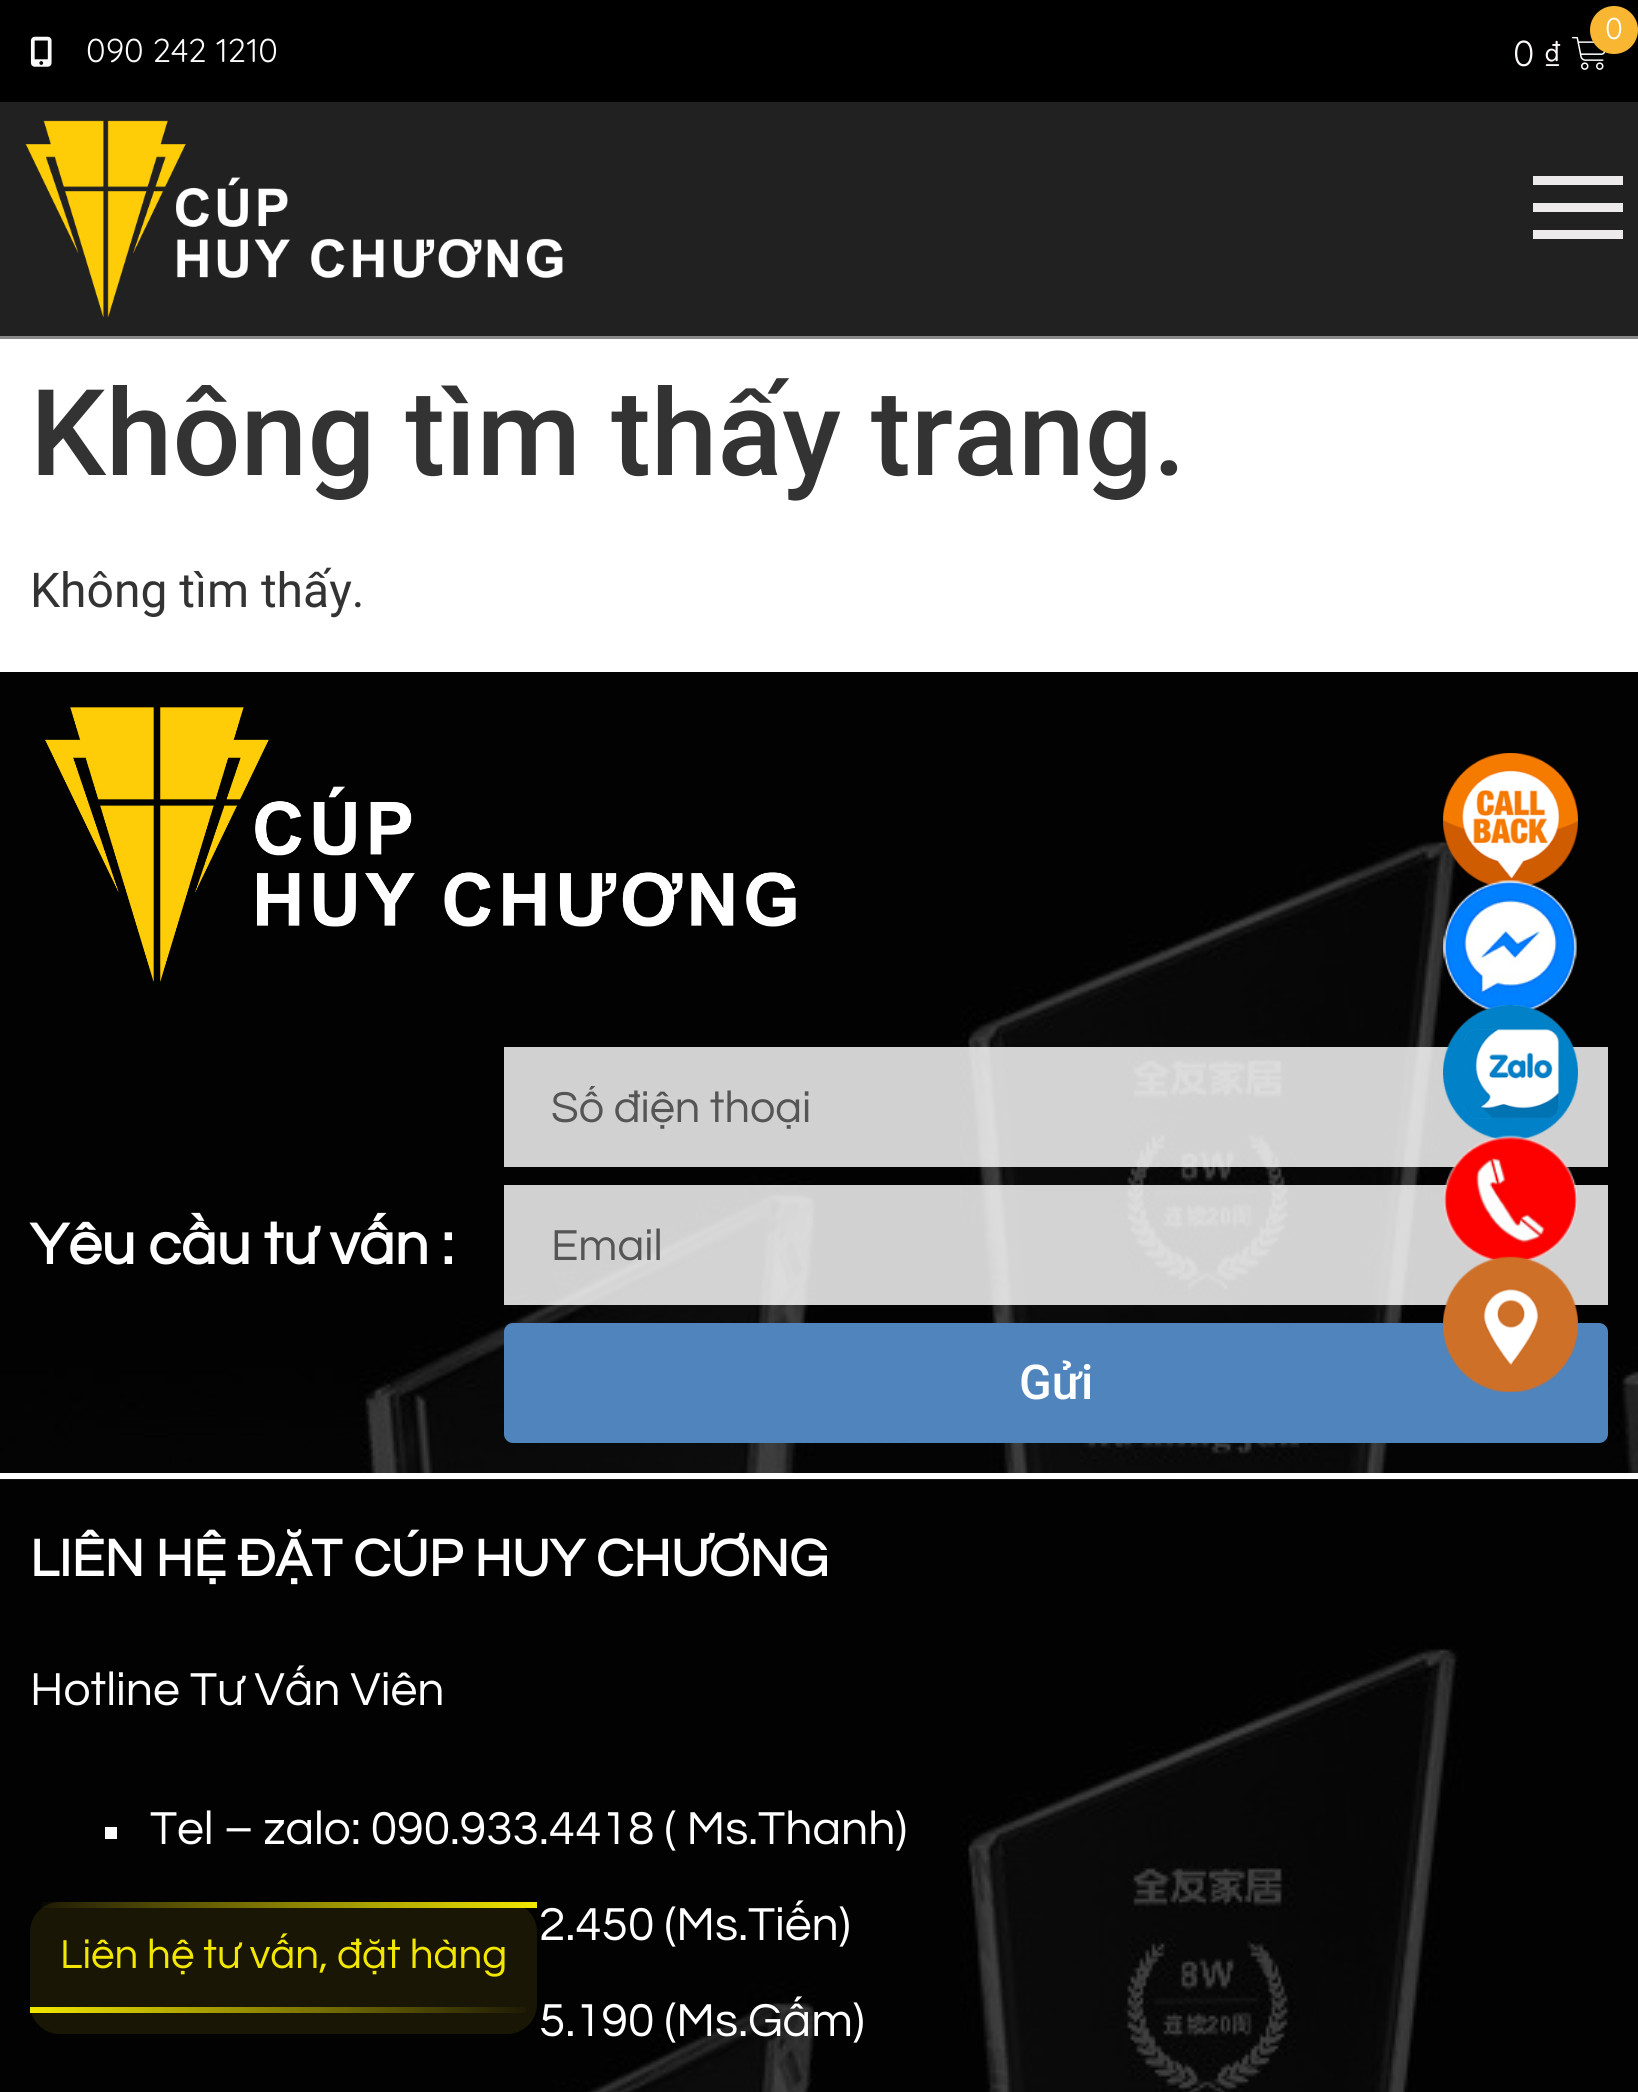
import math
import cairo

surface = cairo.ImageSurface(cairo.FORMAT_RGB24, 1638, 2092)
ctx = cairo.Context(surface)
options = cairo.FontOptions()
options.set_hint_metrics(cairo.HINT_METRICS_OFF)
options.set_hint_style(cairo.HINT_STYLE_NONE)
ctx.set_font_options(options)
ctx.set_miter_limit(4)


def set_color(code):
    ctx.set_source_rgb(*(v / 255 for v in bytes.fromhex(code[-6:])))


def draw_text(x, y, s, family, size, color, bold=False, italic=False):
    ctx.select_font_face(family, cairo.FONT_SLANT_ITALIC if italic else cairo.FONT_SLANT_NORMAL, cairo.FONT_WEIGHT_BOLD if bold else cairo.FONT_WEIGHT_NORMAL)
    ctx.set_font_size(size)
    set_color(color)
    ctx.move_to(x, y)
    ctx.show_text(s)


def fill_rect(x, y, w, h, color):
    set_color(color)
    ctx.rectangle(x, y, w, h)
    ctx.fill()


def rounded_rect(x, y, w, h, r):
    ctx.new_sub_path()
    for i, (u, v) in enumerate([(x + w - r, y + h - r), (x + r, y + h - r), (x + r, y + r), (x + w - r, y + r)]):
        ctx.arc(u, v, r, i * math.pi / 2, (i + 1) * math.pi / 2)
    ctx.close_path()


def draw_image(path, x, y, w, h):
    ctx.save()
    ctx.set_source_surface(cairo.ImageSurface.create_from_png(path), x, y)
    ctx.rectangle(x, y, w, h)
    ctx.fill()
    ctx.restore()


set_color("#ffffff")
ctx.paint()
fill_rect(0, 0, 1638, 102, "#000000")
draw_image("assets/img1.png", 30, 36, 22, 31)
draw_text(86, 62, "090 242 1210", "Quicksand", 33, "#f9fbfd")
draw_image("assets/img2.png", 1572, 36, 34, 34)
set_color("#f8b633")
ctx.arc(1614, 30, 24, 0, 2 * math.pi)
ctx.fill()
draw_text(1605, 39, "0", "Quicksand", 30, "#ffffff")
draw_text(1513, 66, "0 ₫", "Quicksand", 36, "#fff9f9")
fill_rect(0, 102, 1638, 234, "#212121")
fill_rect(0, 336, 1638, 3, "#898989")
draw_image("assets/img3.png", 25, 120, 538, 198)
set_color("#eceaea")
ctx.new_path()
ctx.move_to(1533, 212)
ctx.line_to(1533, 203)
ctx.line_to(1623, 203)
ctx.line_to(1623, 212)
ctx.close_path()
ctx.move_to(1533, 185)
ctx.line_to(1533, 176)
ctx.line_to(1623, 176)
ctx.line_to(1623, 185)
ctx.close_path()
ctx.move_to(1533, 239)
ctx.line_to(1533, 230)
ctx.line_to(1623, 230)
ctx.line_to(1623, 239)
ctx.close_path()
ctx.fill()
draw_text(30, 475, "Không tìm thấy trang.", "Roboto Medium", 120, "#333333")
draw_text(30, 607, "Không tìm thấy.", "Roboto", 48, "#333333")
draw_image("assets/img4.png", 0, 672, 1638, 801)
draw_image("assets/img5.png", 45, 707, 751, 275)
draw_text(30, 1264, "Yêu cầu tư vấn :", "Questrial", 60, "#ffffff", bold=True)
ctx.set_source_rgba(1, 1, 1, 0.82)
ctx.rectangle(504, 1047, 1104, 120)
ctx.fill()
ctx.save()
ctx.rectangle(552, 1086, 1008, 45)
ctx.clip()
draw_text(551, 1122, "Số điện thoại", "Questrial", 45, "#555555")
ctx.restore()
ctx.rectangle(504, 1185, 1104, 120)
ctx.fill()
draw_text(551, 1260, "Email", "Questrial", 45, "#555555")
set_color("#5084bd")
rounded_rect(504, 1323, 1104, 120, 9)
ctx.fill()
draw_text(1019, 1399, "Gửi", "Roboto Medium", 48, "#ffffff")
draw_image("assets/img6.png", 0, 1479, 1638, 613)
draw_text(30, 1576, "LIÊN HỆ ĐẶT CÚP HUY CHƯƠNG", "Questrial", 54, "#ffffff", bold=True)
draw_text(30, 1705, "Hotline Tư Vấn Viên", "Questrial", 48, "#ffffff")
fill_rect(105, 1827, 12, 12, "#ffffff")
draw_text(150, 1844, "Tel – zalo: 090.933.4418 ( Ms.Thanh)", "Questrial", 48, "#ffffff")
draw_text(539, 1940, "2.450 (Ms.Tiến)", "Questrial", 48, "#ffffff")
draw_text(539, 2036, "5.190 (Ms.Gấm)", "Questrial", 48, "#ffffff")
draw_image("assets/img7.png", 1443, 753, 135, 133)
draw_image("assets/img8.png", 1443, 880, 134, 130)
draw_image("assets/img9.png", 1443, 1005, 135, 135)
draw_image("assets/img10.png", 1444, 1135, 133, 127)
draw_image("assets/img11.png", 1443, 1256, 135, 136)
set_color("#1a1605")
rounded_rect(30, 1902, 507, 132, 30)
ctx.fill()
gradient = cairo.LinearGradient(30, 1905, 537, 1905)
gradient.add_color_stop_rgba(0, 0.949, 0.906, 0, 0)
gradient.add_color_stop_rgba(1, 0.949, 0.906, 0, 1)
ctx.set_source(gradient)
ctx.rectangle(41, 1902, 496, 6)
ctx.fill()
draw_text(60, 1968, "Liên hệ tư vấn, đặt hàng", "Questrial", 42, "#f2e700")
gradient = cairo.LinearGradient(537, 2010, 30, 2010)
gradient.add_color_stop_rgba(0, 0.949, 0.906, 0, 0)
gradient.add_color_stop_rgba(1, 0.949, 0.906, 0, 1)
ctx.set_source(gradient)
ctx.rectangle(30, 2007, 496, 6)
ctx.fill()
surface.write_to_png("output.png")
